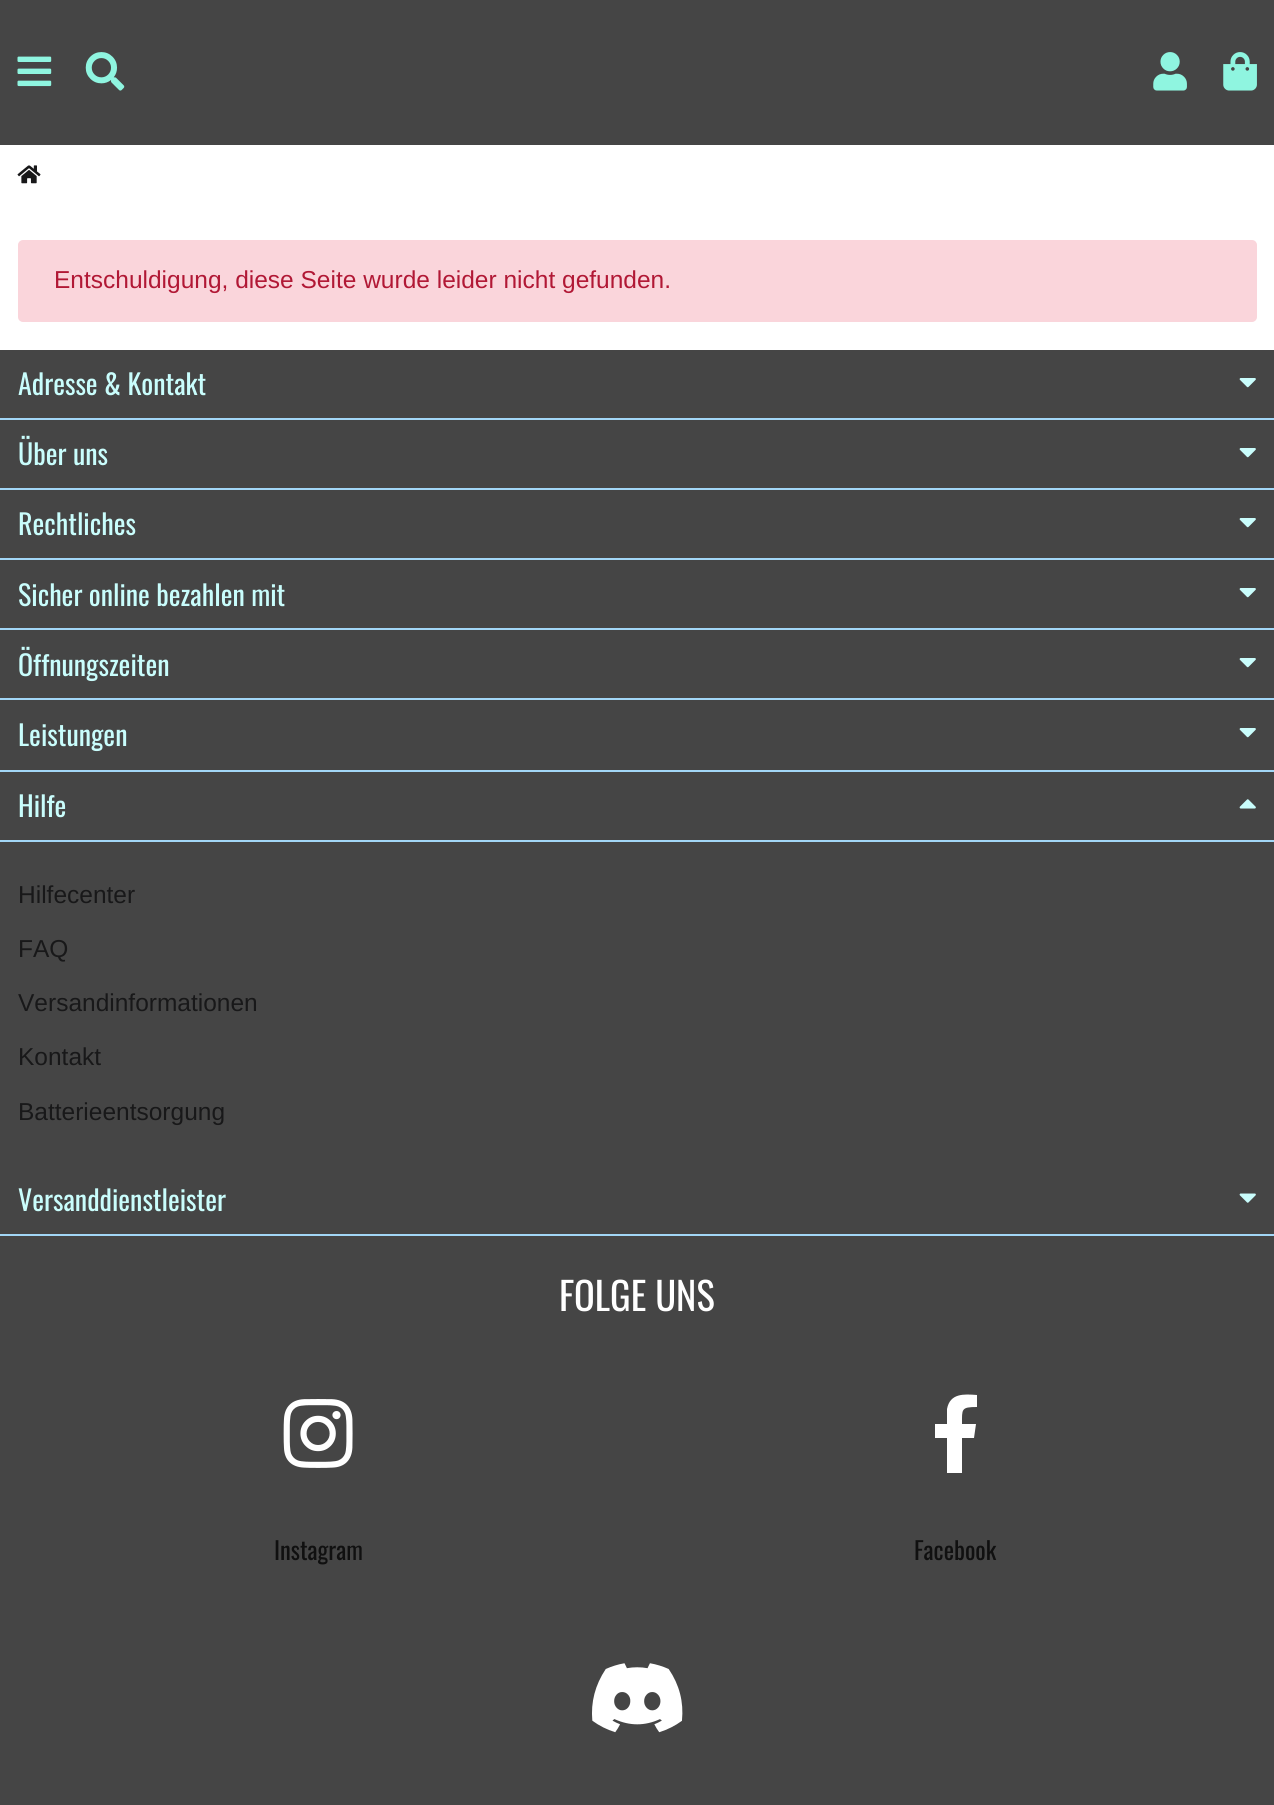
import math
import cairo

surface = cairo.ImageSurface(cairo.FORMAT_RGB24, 1274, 1805)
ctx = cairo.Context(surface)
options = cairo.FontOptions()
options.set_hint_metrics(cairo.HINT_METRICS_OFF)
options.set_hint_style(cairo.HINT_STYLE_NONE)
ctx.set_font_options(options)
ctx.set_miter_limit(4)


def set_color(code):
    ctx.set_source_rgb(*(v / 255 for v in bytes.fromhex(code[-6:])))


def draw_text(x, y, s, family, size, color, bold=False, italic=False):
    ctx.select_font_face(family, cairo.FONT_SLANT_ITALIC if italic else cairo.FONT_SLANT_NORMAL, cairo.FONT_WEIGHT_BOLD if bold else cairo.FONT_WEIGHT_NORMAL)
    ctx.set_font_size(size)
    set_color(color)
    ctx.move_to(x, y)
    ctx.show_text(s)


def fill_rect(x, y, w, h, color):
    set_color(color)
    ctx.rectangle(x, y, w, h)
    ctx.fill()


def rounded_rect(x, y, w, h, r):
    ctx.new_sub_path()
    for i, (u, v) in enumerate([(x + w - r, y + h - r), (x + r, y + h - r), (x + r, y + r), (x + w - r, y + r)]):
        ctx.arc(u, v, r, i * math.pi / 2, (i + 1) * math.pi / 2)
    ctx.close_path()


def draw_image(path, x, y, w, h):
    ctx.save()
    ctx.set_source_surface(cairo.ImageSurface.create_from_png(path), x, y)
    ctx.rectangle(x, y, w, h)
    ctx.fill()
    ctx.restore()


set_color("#ffffff")
ctx.paint()
fill_rect(0, 0, 1274, 145, "#454545")
draw_image("assets/img1.png", 17, 56, 35, 31)
draw_image("assets/img2.png", 85, 52, 40, 39)
draw_image("assets/img3.png", 1153, 52, 34, 39)
draw_image("assets/img4.png", 1223, 52, 34, 39)
draw_image("assets/img5.png", 17, 165, 24, 19)
set_color("#fad5db")
rounded_rect(19, 241, 1237, 80, 4)
ctx.fill_preserve()
ctx.stroke()
draw_text(54, 288, "Entschuldigung, diese Seite wurde leider nicht gefunden.", "Liberation Sans", 24.5, "#b11835")
fill_rect(0, 350, 1274, 884, "#454545")
fill_rect(0, 418, 1274, 2, "#a2d6f6")
draw_text(18, 395, "Adresse & Kontakt", "Oswald", 28, "#c9fdfc")
draw_image("assets/img6.png", 1239, 378, 17, 10)
fill_rect(0, 488, 1274, 2, "#a2d6f6")
draw_text(18, 465, "Über uns", "Oswald", 28, "#c9fdfc")
draw_image("assets/img6.png", 1239, 448, 17, 10)
fill_rect(0, 558, 1274, 2, "#a2d6f6")
draw_text(18, 535, "Rechtliches", "Oswald", 28, "#c9fdfc")
draw_image("assets/img6.png", 1239, 518, 17, 10)
fill_rect(0, 628, 1274, 2, "#a2d6f6")
draw_text(18, 606, "Sicher online bezahlen mit", "Oswald", 28, "#c9fdfc")
draw_image("assets/img6.png", 1239, 588, 17, 10)
fill_rect(0, 698, 1274, 2, "#a2d6f6")
draw_text(18, 676, "Öffnungszeiten", "Oswald", 28, "#c9fdfc")
draw_image("assets/img6.png", 1239, 658, 17, 10)
fill_rect(0, 770, 1274, 2, "#a2d6f6")
draw_text(18, 746, "Leistungen", "Oswald", 28, "#c9fdfc")
draw_image("assets/img6.png", 1239, 728, 17, 10)
fill_rect(0, 840, 1274, 2, "#a2d6f6")
draw_text(18, 817, "Hilfe", "Oswald", 28, "#c9fdfc")
draw_image("assets/img7.png", 1239, 799, 17, 10)
draw_text(18, 903, "Hilfecenter", "Liberation Sans", 24.5, "#181819")
draw_text(18, 957, "FAQ", "Liberation Sans", 24.5, "#181819")
draw_text(18, 1011, "Versandinformationen", "Liberation Sans", 24.5, "#181819")
draw_text(18, 1065, "Kontakt", "Liberation Sans", 24.5, "#181819")
draw_text(18, 1120, "Batterieentsorgung", "Liberation Sans", 24.5, "#181819")
fill_rect(0, 1234, 1274, 2, "#a2d6f6")
draw_text(18, 1211, "Versanddienstleister", "Oswald", 28, "#c9fdfc")
draw_image("assets/img8.png", 1239, 1193, 17, 10)
fill_rect(0, 1236, 1274, 569, "#454545")
draw_text(559, 1311, "FOLGE UNS", "Oswald", 38.5, "#ffffff")
draw_image("assets/img9.png", 283, 1399, 70, 69)
draw_text(274, 1560, "Instagram", "Oswald", 24.5, "#101010")
set_color("#ffffff")
ctx.new_path()
ctx.move_to(974, 1438)
ctx.line_to(962, 1438)
ctx.line_to(962, 1473)
ctx.line_to(947, 1473)
ctx.line_to(947, 1438)
ctx.line_to(935, 1438)
ctx.line_to(935, 1424)
ctx.line_to(947, 1424)
ctx.line_to(947, 1409)
ctx.curve_to(950, 1393, 964, 1394, 977, 1395)
ctx.line_to(977, 1407)
ctx.curve_to(961, 1407, 962, 1409, 962, 1424)
ctx.line_to(976, 1424)
ctx.close_path()
ctx.fill()
draw_text(914, 1560, "Facebook", "Oswald", 24.5, "#101010")
draw_image("assets/img10.png", 592, 1663, 91, 70)
surface.write_to_png("output.png")
